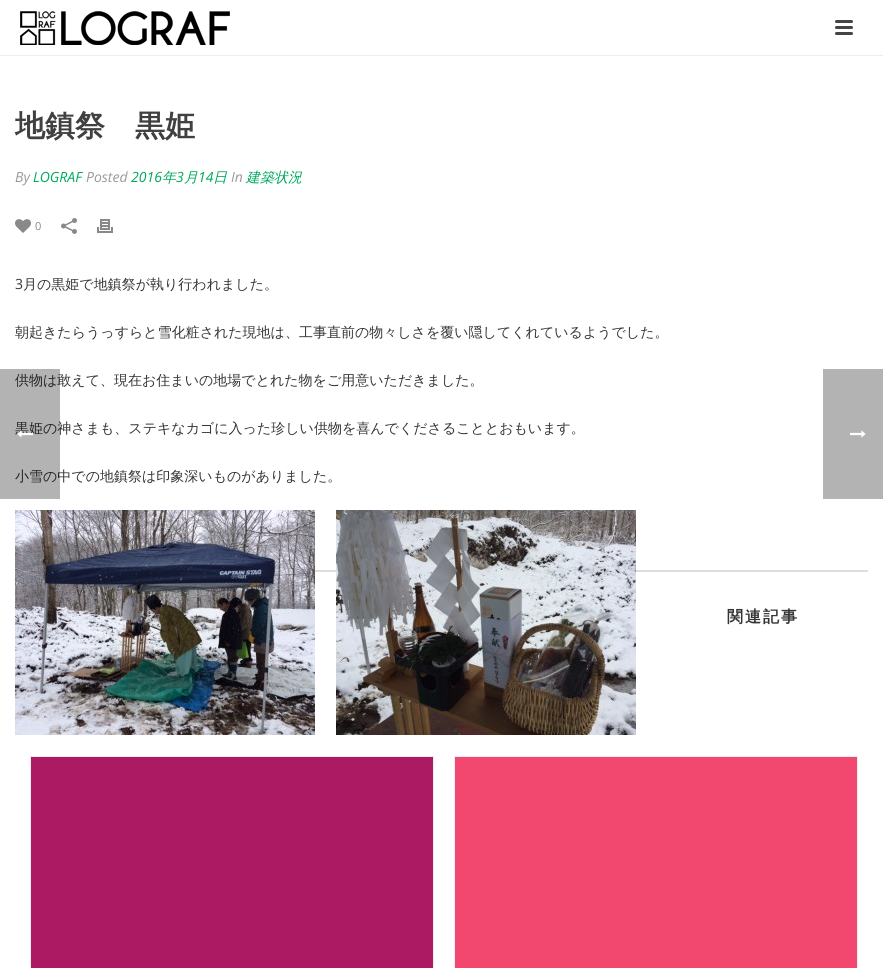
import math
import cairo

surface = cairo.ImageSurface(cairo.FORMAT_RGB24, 883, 968)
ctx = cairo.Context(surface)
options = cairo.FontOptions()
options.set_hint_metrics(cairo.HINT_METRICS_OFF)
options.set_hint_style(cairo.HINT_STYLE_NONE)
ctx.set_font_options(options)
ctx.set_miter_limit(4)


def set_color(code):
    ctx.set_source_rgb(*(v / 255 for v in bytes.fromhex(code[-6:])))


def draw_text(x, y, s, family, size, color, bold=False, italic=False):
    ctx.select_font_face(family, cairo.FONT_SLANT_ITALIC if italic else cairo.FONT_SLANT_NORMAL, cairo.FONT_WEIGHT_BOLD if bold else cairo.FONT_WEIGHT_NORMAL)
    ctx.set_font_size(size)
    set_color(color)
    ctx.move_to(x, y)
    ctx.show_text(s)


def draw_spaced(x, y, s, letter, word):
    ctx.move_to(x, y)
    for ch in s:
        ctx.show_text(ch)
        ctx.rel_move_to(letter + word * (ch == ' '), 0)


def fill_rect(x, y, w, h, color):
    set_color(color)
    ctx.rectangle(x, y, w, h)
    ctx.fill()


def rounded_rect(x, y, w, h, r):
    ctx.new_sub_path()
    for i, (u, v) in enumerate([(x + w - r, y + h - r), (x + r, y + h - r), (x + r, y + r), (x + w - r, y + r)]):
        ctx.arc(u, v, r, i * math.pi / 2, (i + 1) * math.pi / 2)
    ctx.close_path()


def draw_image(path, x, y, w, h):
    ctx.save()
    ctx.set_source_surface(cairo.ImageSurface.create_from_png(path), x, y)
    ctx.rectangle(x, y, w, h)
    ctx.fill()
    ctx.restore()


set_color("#ffffff")
ctx.paint()
fill_rect(0, 55, 883, 1, "#ededed")
draw_image("assets/img1.png", 20, 11, 210, 34)
set_color("#444444")
rounded_rect(835, 20, 18, 3, 1.5)
ctx.fill()
rounded_rect(835, 26, 18, 3, 1.5)
ctx.fill()
rounded_rect(835, 32, 18, 3, 1.5)
ctx.fill()
draw_text(15, 136, "地鎮祭　黒姫", "WenQuanYi Zen Hei", 30, "#404040", bold=True)
draw_text(15, 182, "By", "Open Sans", 14, "#999999", italic=True)
draw_text(33, 182, "LOGRAF", "Open Sans", 14, "#00a85f", italic=True)
draw_text(86, 182, "Posted", "Open Sans", 14, "#999999", italic=True)
draw_text(131, 182, "2016", "Open Sans", 14, "#00a85f", italic=True)
draw_text(162, 182, "年", "WenQuanYi Zen Hei Medium", 14, "#00a85f", italic=True)
draw_text(176, 182, "3", "Open Sans", 14, "#00a85f", italic=True)
draw_text(184, 182, "月", "WenQuanYi Zen Hei Medium", 14, "#00a85f", italic=True)
draw_text(198, 182, "14", "Open Sans", 14, "#00a85f", italic=True)
draw_text(213, 182, "日", "WenQuanYi Zen Hei Medium", 14, "#00a85f", italic=True)
draw_text(231, 182, "In", "Open Sans", 14, "#999999", italic=True)
draw_text(246, 182, "建築状況", "WenQuanYi Zen Hei Medium", 14, "#00a85f", italic=True)
draw_image("assets/img2.png", 15, 219, 16, 14)
draw_text(35, 230, "0", "Open Sans", 11, "#898989")
draw_image("assets/img3.png", 61, 218, 16, 16)
draw_image("assets/img4.png", 97, 219, 16, 14)
draw_text(15, 289, "3", "Open Sans", 14, "#353535")
draw_text(23, 289, "月の黒姫で地鎮祭が執り行われました。", "WenQuanYi Zen Hei Medium", 14, "#353535")
draw_text(15, 337, "朝起きたらうっすらと雪化粧された現地は、工事直前の物々しさを覆い隠してくれているようでした。", "WenQuanYi Zen Hei Medium", 14, "#353535")
draw_text(15, 385, "供物は敢えて、現在お住まいの地場でとれた物をご用意いただきました。", "WenQuanYi Zen Hei Medium", 14, "#353535")
draw_text(15, 433, "黒姫の神さまも、ステキなカゴに入った珍しい供物を喜んでくださることとおもいます。", "WenQuanYi Zen Hei Medium", 14, "#353535")
draw_text(15, 481, "小雪の中での地鎮祭は印象深いものがありました。", "WenQuanYi Zen Hei Medium", 14, "#353535")
draw_image("assets/img5.png", 15, 510, 300, 225)
fill_rect(315, 570, 553, 2, "#dddddd")
draw_image("assets/img6.png", 336, 510, 300, 225)
ctx.select_font_face("WenQuanYi Zen Hei", cairo.FONT_SLANT_NORMAL, cairo.FONT_WEIGHT_BOLD)
ctx.set_font_size(16)
set_color("#353535")
draw_spaced(727, 622, "関連記事", 2, 0)
ctx.rectangle(30.5, 756.5, 403, 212)
set_color("#efefef")
ctx.set_line_width(1)
ctx.stroke()
fill_rect(31, 757, 402, 211, "#ac1a63")
ctx.rectangle(454.5, 756.5, 403, 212)
set_color("#efefef")
ctx.stroke()
fill_rect(455, 757, 402, 211, "#f2486f")
ctx.set_source_rgba(0, 0, 0, 0.3)
ctx.rectangle(0, 369, 60, 130)
ctx.fill()
draw_image("assets/img7.png", 17, 430, 16, 8)
fill_rect(823, 369, 60, 130, "#b3b3b3")
draw_image("assets/img8.png", 850, 430, 16, 8)
surface.write_to_png("output.png")
